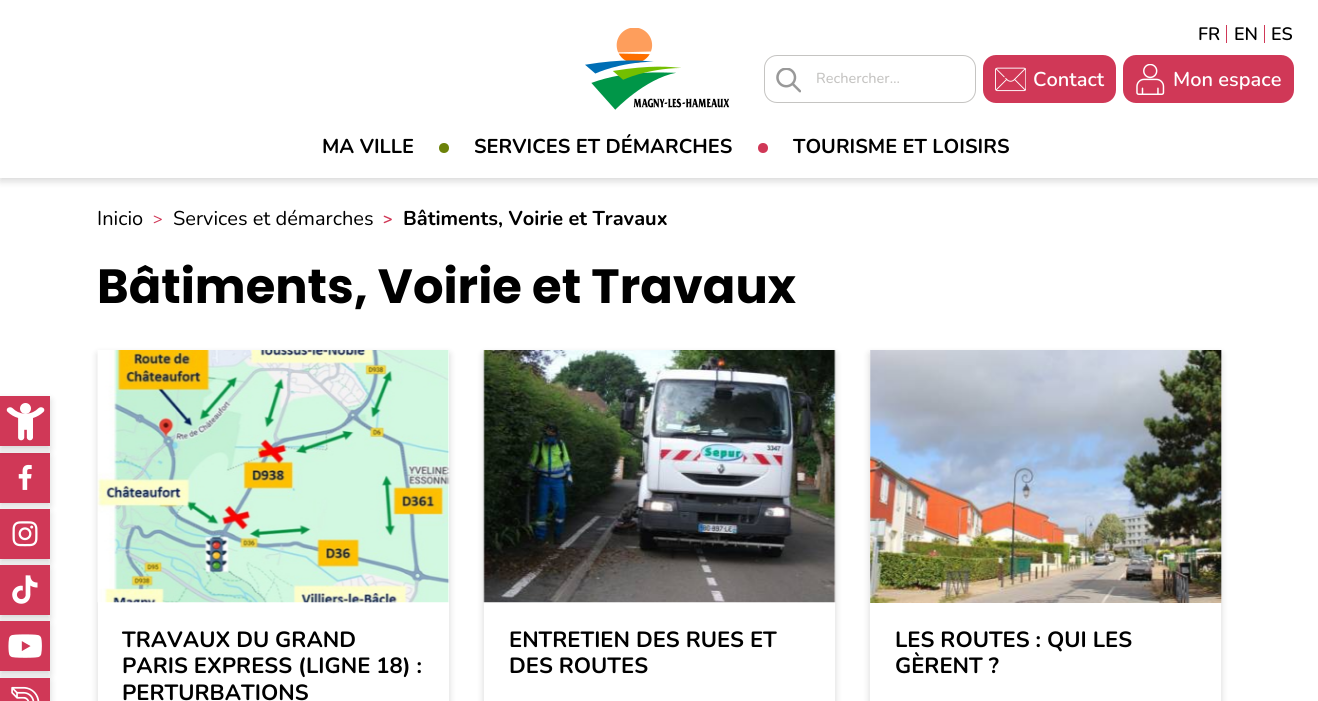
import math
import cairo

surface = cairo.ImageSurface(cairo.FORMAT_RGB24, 1318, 701)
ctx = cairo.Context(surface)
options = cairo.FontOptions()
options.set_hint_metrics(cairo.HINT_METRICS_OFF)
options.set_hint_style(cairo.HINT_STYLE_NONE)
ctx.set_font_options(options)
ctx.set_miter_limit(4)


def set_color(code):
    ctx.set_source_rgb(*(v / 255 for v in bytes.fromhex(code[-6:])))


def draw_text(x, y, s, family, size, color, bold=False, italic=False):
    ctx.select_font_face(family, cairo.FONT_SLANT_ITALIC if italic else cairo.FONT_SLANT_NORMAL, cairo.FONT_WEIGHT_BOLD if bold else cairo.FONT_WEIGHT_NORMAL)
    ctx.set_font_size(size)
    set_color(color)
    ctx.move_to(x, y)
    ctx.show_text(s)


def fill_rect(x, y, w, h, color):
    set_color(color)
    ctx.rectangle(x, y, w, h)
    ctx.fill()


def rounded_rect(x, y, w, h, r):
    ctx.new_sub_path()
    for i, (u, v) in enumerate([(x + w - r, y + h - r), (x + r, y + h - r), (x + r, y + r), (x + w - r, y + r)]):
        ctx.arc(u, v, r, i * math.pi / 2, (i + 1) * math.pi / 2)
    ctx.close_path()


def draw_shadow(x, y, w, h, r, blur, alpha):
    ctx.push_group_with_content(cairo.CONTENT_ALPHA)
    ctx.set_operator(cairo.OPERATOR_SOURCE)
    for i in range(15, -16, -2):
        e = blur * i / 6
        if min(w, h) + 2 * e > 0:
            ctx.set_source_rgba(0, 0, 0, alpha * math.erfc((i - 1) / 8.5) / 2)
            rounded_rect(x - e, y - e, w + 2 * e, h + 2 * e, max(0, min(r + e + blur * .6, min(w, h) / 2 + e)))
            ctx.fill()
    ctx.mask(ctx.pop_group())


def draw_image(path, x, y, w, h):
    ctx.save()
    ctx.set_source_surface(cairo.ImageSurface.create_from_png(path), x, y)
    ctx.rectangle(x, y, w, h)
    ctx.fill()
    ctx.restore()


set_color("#ffffff")
ctx.paint()
set_color("#000000")
draw_shadow(0, 456, 50, 50, 0, 4, 0.16)
fill_rect(0, 453, 50, 50, "#d03857")
set_color("#000000")
draw_shadow(0, 400, 50, 50, 0, 4, 0.16)
fill_rect(0, 396, 50, 50, "#d03857")
draw_image("assets/img1.png", 6, 403, 39, 38)
set_color("#000000")
draw_shadow(0, 4, 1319, 177, 0, 4, 0.16)
fill_rect(0, 0, 1318, 178, "#ffffff")
draw_text(1198, 40, "FR", "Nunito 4 ExtraLight", 18, "#000000")
fill_rect(1226, 25, 1, 18, "#d03857")
draw_text(1234, 40, "EN", "Nunito 4 ExtraLight", 18, "#000000")
fill_rect(1264, 25, 1, 18, "#d03857")
draw_text(1271, 40, "ES", "Nunito 4 ExtraLight", 18, "#000000")
rounded_rect(764.5, 55.5, 211, 47, 12.5)
set_color("#c5c4c2")
ctx.set_line_width(1)
ctx.stroke()
draw_image("assets/img2.png", 776, 68, 25, 25)
draw_text(816, 83, "Rechercher…", "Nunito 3 ExtraLight", 14.5, "#c5c4c2")
set_color("#d03857")
rounded_rect(983, 55, 133, 48, 13)
ctx.fill()
draw_image("assets/img3.png", 995, 67, 31, 25)
draw_text(1033, 86, "Contact", "Nunito 4 ExtraLight", 20, "#ffffff")
set_color("#d03857")
rounded_rect(1123, 55, 171, 48, 13)
ctx.fill()
draw_image("assets/img4.png", 1136, 64, 29, 31)
draw_text(1173, 86, "Mon espace", "Nunito 4 ExtraLight", 20, "#ffffff")
draw_image("assets/img5.png", 585, 28, 145, 82)
draw_text(322, 153, "MA VILLE", "Nunito ExtraLight", 20, "#000000")
set_color("#6c8209")
ctx.new_path()
ctx.arc(444, 148, 5, 0, 2 * math.pi)
ctx.fill()
draw_text(474, 153, "SERVICES ET DÉMARCHES", "Nunito ExtraLight", 20, "#000000")
set_color("#d03857")
ctx.new_path()
ctx.arc(763, 148, 5, 0, 2 * math.pi)
ctx.fill()
draw_text(793, 153, "TOURISME ET LOISIRS", "Nunito ExtraLight", 20, "#000000")
draw_image("assets/img6.png", 18, 464, 14, 26)
set_color("#000000")
draw_shadow(0, 513, 50, 50, 0, 4, 0.16)
fill_rect(0, 509, 50, 50, "#d03857")
draw_image("assets/img7.png", 12, 521, 26, 26)
set_color("#000000")
draw_shadow(0, 569, 50, 50, 0, 4, 0.16)
fill_rect(0, 565, 50, 50, "#d03857")
draw_image("assets/img8.png", 12, 575, 26, 29)
set_color("#000000")
draw_shadow(0, 625, 50, 50, 0, 4, 0.16)
fill_rect(0, 621, 50, 50, "#d03857")
draw_image("assets/img9.png", 8, 634, 34, 24)
set_color("#000000")
draw_shadow(0, 681, 50, 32, 0, 4, 0.16)
fill_rect(0, 678, 50, 23, "#d03857")
draw_image("assets/img10.png", 11, 686, 29, 15)
draw_text(97, 225, "Inicio", "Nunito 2 ExtraLight", 20, "#000000")
draw_text(153, 224, ">", "Nunito 3 ExtraLight", 16, "#d03857")
draw_text(173, 225, "Services et démarches", "Nunito 2 ExtraLight", 20, "#000000")
draw_text(383, 224, ">", "Nunito ExtraLight", 16, "#d03857")
draw_text(403, 225, "Bâtiments, Voirie et Travaux", "Nunito ExtraLight", 20, "#000000")
draw_text(97, 303, "Bâtiments, Voirie et Travaux", "Poppins", 48, "#000000", bold=True)
set_color("#000000")
draw_shadow(98, 354, 351, 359, 0, 4, 0.16)
fill_rect(98, 350, 351, 351, "#ffffff")
draw_image("assets/img11.png", 97, 350, 353, 253)
draw_text(122, 647, "TRAVAUX DU GRAND", "Nunito ExtraLight", 22, "#000000")
draw_text(122, 673, "PARIS EXPRESS (LIGNE 18) :", "Nunito ExtraLight", 22, "#000000")
draw_text(122, 700, "PERTURBATIONS", "Nunito ExtraLight", 22, "#000000")
ctx.save()
ctx.set_fill_rule(cairo.FILL_RULE_EVEN_ODD)
ctx.new_path()
ctx.move_to(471, 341)
ctx.line_to(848, 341)
ctx.line_to(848, 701)
ctx.line_to(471, 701)
ctx.close_path()
ctx.move_to(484, 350)
ctx.line_to(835, 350)
ctx.line_to(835, 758)
ctx.line_to(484, 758)
ctx.close_path()
ctx.clip()
set_color("#000000")
draw_shadow(484, 354, 351, 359, 0, 4, 0.16)
ctx.restore()
draw_image("assets/img12.png", 483, 350, 353, 253)
draw_text(509, 647, "ENTRETIEN DES RUES ET", "Nunito ExtraLight", 22, "#000000")
draw_text(509, 673, "DES ROUTES", "Nunito ExtraLight", 22, "#000000")
ctx.save()
ctx.set_fill_rule(cairo.FILL_RULE_EVEN_ODD)
ctx.new_path()
ctx.move_to(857, 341)
ctx.line_to(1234, 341)
ctx.line_to(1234, 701)
ctx.line_to(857, 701)
ctx.close_path()
ctx.move_to(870, 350)
ctx.line_to(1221, 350)
ctx.line_to(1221, 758)
ctx.line_to(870, 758)
ctx.close_path()
ctx.clip()
set_color("#000000")
draw_shadow(870, 354, 351, 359, 0, 4, 0.16)
ctx.restore()
draw_image("assets/img13.png", 870, 350, 352, 253)
draw_text(895, 647, "LES ROUTES : QUI LES", "Nunito ExtraLight", 22, "#000000")
draw_text(895, 673, "GÈRENT ?", "Nunito ExtraLight", 22, "#000000")
surface.write_to_png("output.png")
